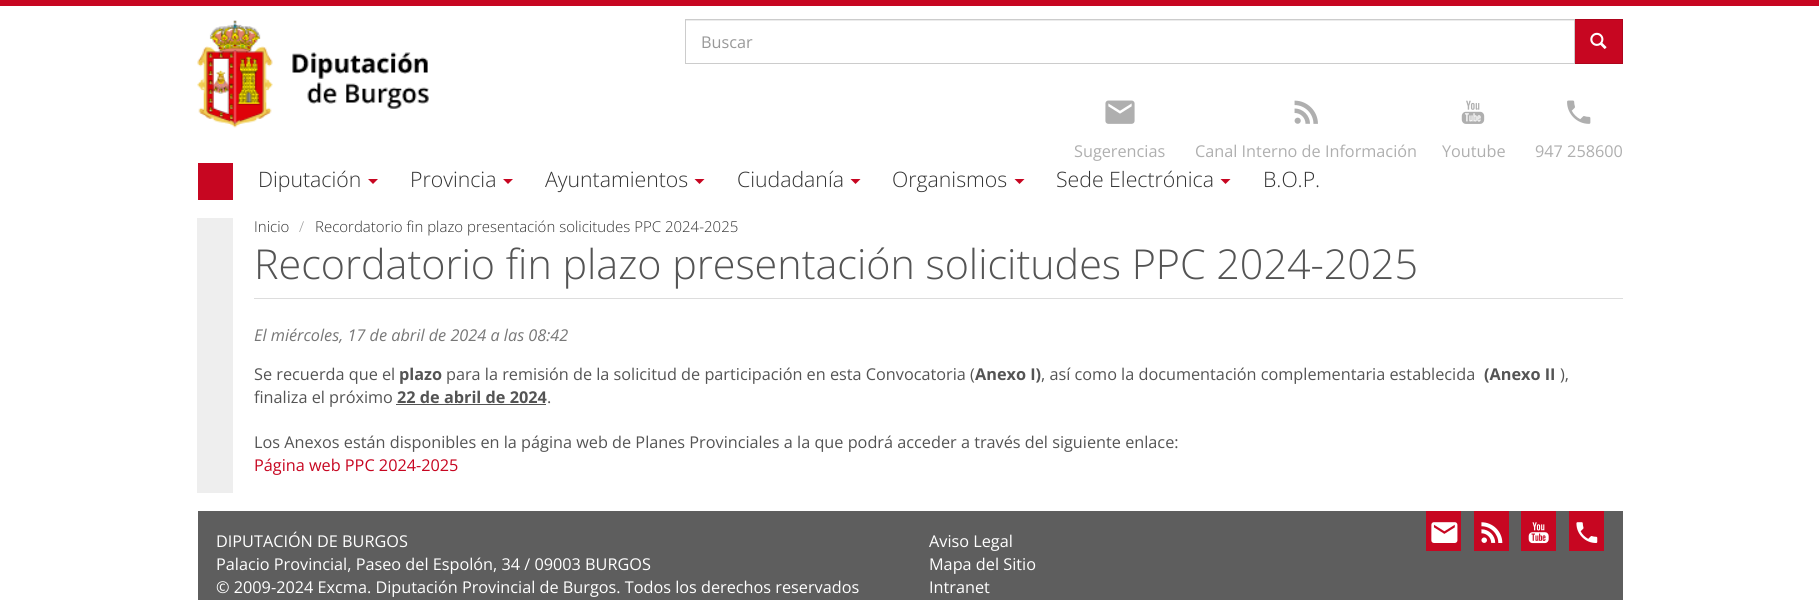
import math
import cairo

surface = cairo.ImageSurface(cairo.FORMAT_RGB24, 1819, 600)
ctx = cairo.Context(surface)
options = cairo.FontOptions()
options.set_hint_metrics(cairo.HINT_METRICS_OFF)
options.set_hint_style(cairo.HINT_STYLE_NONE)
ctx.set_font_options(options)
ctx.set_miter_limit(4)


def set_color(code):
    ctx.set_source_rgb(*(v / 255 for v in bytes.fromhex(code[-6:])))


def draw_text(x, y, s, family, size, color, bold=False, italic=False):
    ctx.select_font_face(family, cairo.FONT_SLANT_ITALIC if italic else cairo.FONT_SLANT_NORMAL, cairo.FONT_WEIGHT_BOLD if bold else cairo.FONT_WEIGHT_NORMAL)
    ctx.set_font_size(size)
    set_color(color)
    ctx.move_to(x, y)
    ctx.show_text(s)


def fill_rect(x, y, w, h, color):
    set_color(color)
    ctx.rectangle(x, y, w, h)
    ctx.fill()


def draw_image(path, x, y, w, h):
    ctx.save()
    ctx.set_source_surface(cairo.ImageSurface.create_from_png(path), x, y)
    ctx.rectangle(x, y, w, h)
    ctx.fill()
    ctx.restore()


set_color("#ffffff")
ctx.paint()
fill_rect(0, 0, 1819, 6, "#c70621")
draw_image("assets/img1.png", 197, 20, 232, 108)
fill_rect(686, 20, 888, 1, "#ececec")
set_color("#c70621")
ctx.rectangle(1574.5, 19.5, 48, 44)
ctx.fill_preserve()
set_color("#ae051d")
ctx.set_line_width(1)
ctx.stroke()
ctx.rectangle(685.5, 19.5, 889, 44)
set_color("#cccccc")
ctx.stroke()
draw_text(701, 48, "Buscar", "Open Sans", 16.25, "#999999")
draw_image("assets/img2.png", 1590, 32, 17, 17)
draw_image("assets/img3.png", 1105, 100, 30, 24)
draw_text(1074, 157, "Sugerencias", "Open Sans", 16.25, "#afafaf")
draw_image("assets/img4.png", 1294, 100, 24, 24)
draw_text(1195, 157, "Canal Interno de Información", "Open Sans", 16.25, "#afafaf")
draw_image("assets/img5.png", 1461, 100, 24, 24)
draw_text(1442, 157, "Youtube", "Open Sans", 16.25, "#afafaf")
draw_image("assets/img6.png", 1567, 100, 24, 24)
draw_text(1535, 157, "947 258600", "Open Sans", 16.25, "#afafaf")
fill_rect(198, 163, 35, 37, "#c70621")
draw_text(258, 187, "Diputación", "Open Sans Light", 21.25, "#333333")
set_color("#c70621")
ctx.new_path()
ctx.move_to(368, 179)
ctx.line_to(373, 184)
ctx.line_to(378, 179)
ctx.close_path()
ctx.fill()
draw_text(410, 187, "Provincia", "Open Sans Light", 21.25, "#333333")
set_color("#c70621")
ctx.new_path()
ctx.move_to(503, 179)
ctx.line_to(508, 184)
ctx.line_to(513, 179)
ctx.close_path()
ctx.fill()
draw_text(545, 187, "Ayuntamientos", "Open Sans Light", 21.25, "#333333")
set_color("#c70621")
ctx.new_path()
ctx.move_to(694.5, 179)
ctx.line_to(699.5, 184)
ctx.line_to(704.5, 179)
ctx.close_path()
ctx.fill()
draw_text(737, 187, "Ciudadanía", "Open Sans Light", 21.25, "#333333")
set_color("#c70621")
ctx.new_path()
ctx.move_to(850.5, 179)
ctx.line_to(855.5, 184)
ctx.line_to(860.5, 179)
ctx.close_path()
ctx.fill()
draw_text(892, 187, "Organismos", "Open Sans Light", 21.25, "#333333")
set_color("#c70621")
ctx.new_path()
ctx.move_to(1014.5, 179)
ctx.line_to(1019.5, 184)
ctx.line_to(1024.5, 179)
ctx.close_path()
ctx.fill()
draw_text(1056, 187, "Sede Electrónica", "Open Sans Light", 21.25, "#333333")
set_color("#c70621")
ctx.new_path()
ctx.move_to(1220.5, 179)
ctx.line_to(1225.5, 184)
ctx.line_to(1230.5, 179)
ctx.close_path()
ctx.fill()
draw_text(1263, 187, "B.O.P.", "Open Sans Light", 21.25, "#333333")
fill_rect(197, 218, 36, 275, "#eeeeee")
draw_text(254, 232, "Inicio", "Open Sans Light", 15, "#333333")
draw_text(299, 232, "/", "Open Sans Light", 15, "#999999")
draw_text(315, 232, "Recordatorio fin plazo presentación solicitudes PPC 2024-2025", "Open Sans Light", 15, "#333333")
fill_rect(254, 298, 1369, 1, "#dddddd")
draw_text(254, 279, "Recordatorio fin plazo presentación solicitudes PPC 2024-2025", "Open Sans Light", 41.25, "#545454")
draw_text(254, 341, "El miércoles, 17 de abril de 2024 a las 08:42", "Open Sans", 16.25, "#777777", italic=True)
draw_text(254, 380, "Se recuerda que el", "Open Sans", 16.25, "#545454")
draw_text(399, 380, "plazo", "Open Sans", 16.25, "#545454", bold=True)
draw_text(446, 380, "para la remisión de la solicitud de participación en esta Convocatoria (", "Open Sans", 16.25, "#545454")
draw_text(975, 380, "Anexo I)", "Open Sans", 16.25, "#545454", bold=True)
draw_text(1041, 380, ", así como la documentación complementaria establecida", "Open Sans", 16.25, "#545454")
draw_text(1484, 380, "(Anexo II", "Open Sans", 16.25, "#545454", bold=True)
draw_text(1560, 380, "),", "Open Sans", 16.25, "#545454")
draw_text(254, 403, "finaliza el próximo", "Open Sans", 16.25, "#545454")
draw_text(397, 403, "22 de abril de 2024", "Open Sans", 16.25, "#545454", bold=True)
fill_rect(396, 404, 150, 1, "#545454")
draw_text(547, 403, ".", "Open Sans", 16.25, "#545454")
draw_text(254, 448, "Los Anexos están disponibles en la página web de Planes Provinciales a la que podrá acceder a través del siguiente enlace:", "Open Sans", 16.25, "#545454")
draw_text(254, 471, "Página web PPC 2024-2025", "Open Sans", 16.25, "#c70621")
fill_rect(198, 511, 1425, 89, "#5e5e5e")
draw_text(216, 547, "DIPUTACIÓN DE BURGOS", "Open Sans", 16.25, "#ffffff")
draw_text(216, 570, "Palacio Provincial, Paseo del Espolón, 34 / 09003 BURGOS", "Open Sans", 16.25, "#ffffff")
draw_text(216, 593, "© 2009-2024 Excma. Diputación Provincial de Burgos. Todos los derechos reservados", "Open Sans", 16.25, "#ffffff")
draw_text(929, 547, "Aviso Legal", "Open Sans", 16.25, "#ffffff")
draw_text(929, 570, "Mapa del Sitio", "Open Sans", 16.25, "#ffffff")
draw_text(929, 593, "Intranet", "Open Sans", 16.25, "#ffffff")
fill_rect(1426, 511, 35, 40, "#c70621")
draw_image("assets/img7.png", 1431, 522, 27, 21)
fill_rect(1474, 511, 35, 40, "#c70621")
draw_image("assets/img8.png", 1481, 522, 22, 21)
fill_rect(1521, 511, 35, 40, "#c70621")
draw_image("assets/img9.png", 1528, 522, 21, 22)
fill_rect(1569, 511, 35, 40, "#c70621")
draw_image("assets/img10.png", 1576, 522, 22, 21)
surface.write_to_png("output.png")
